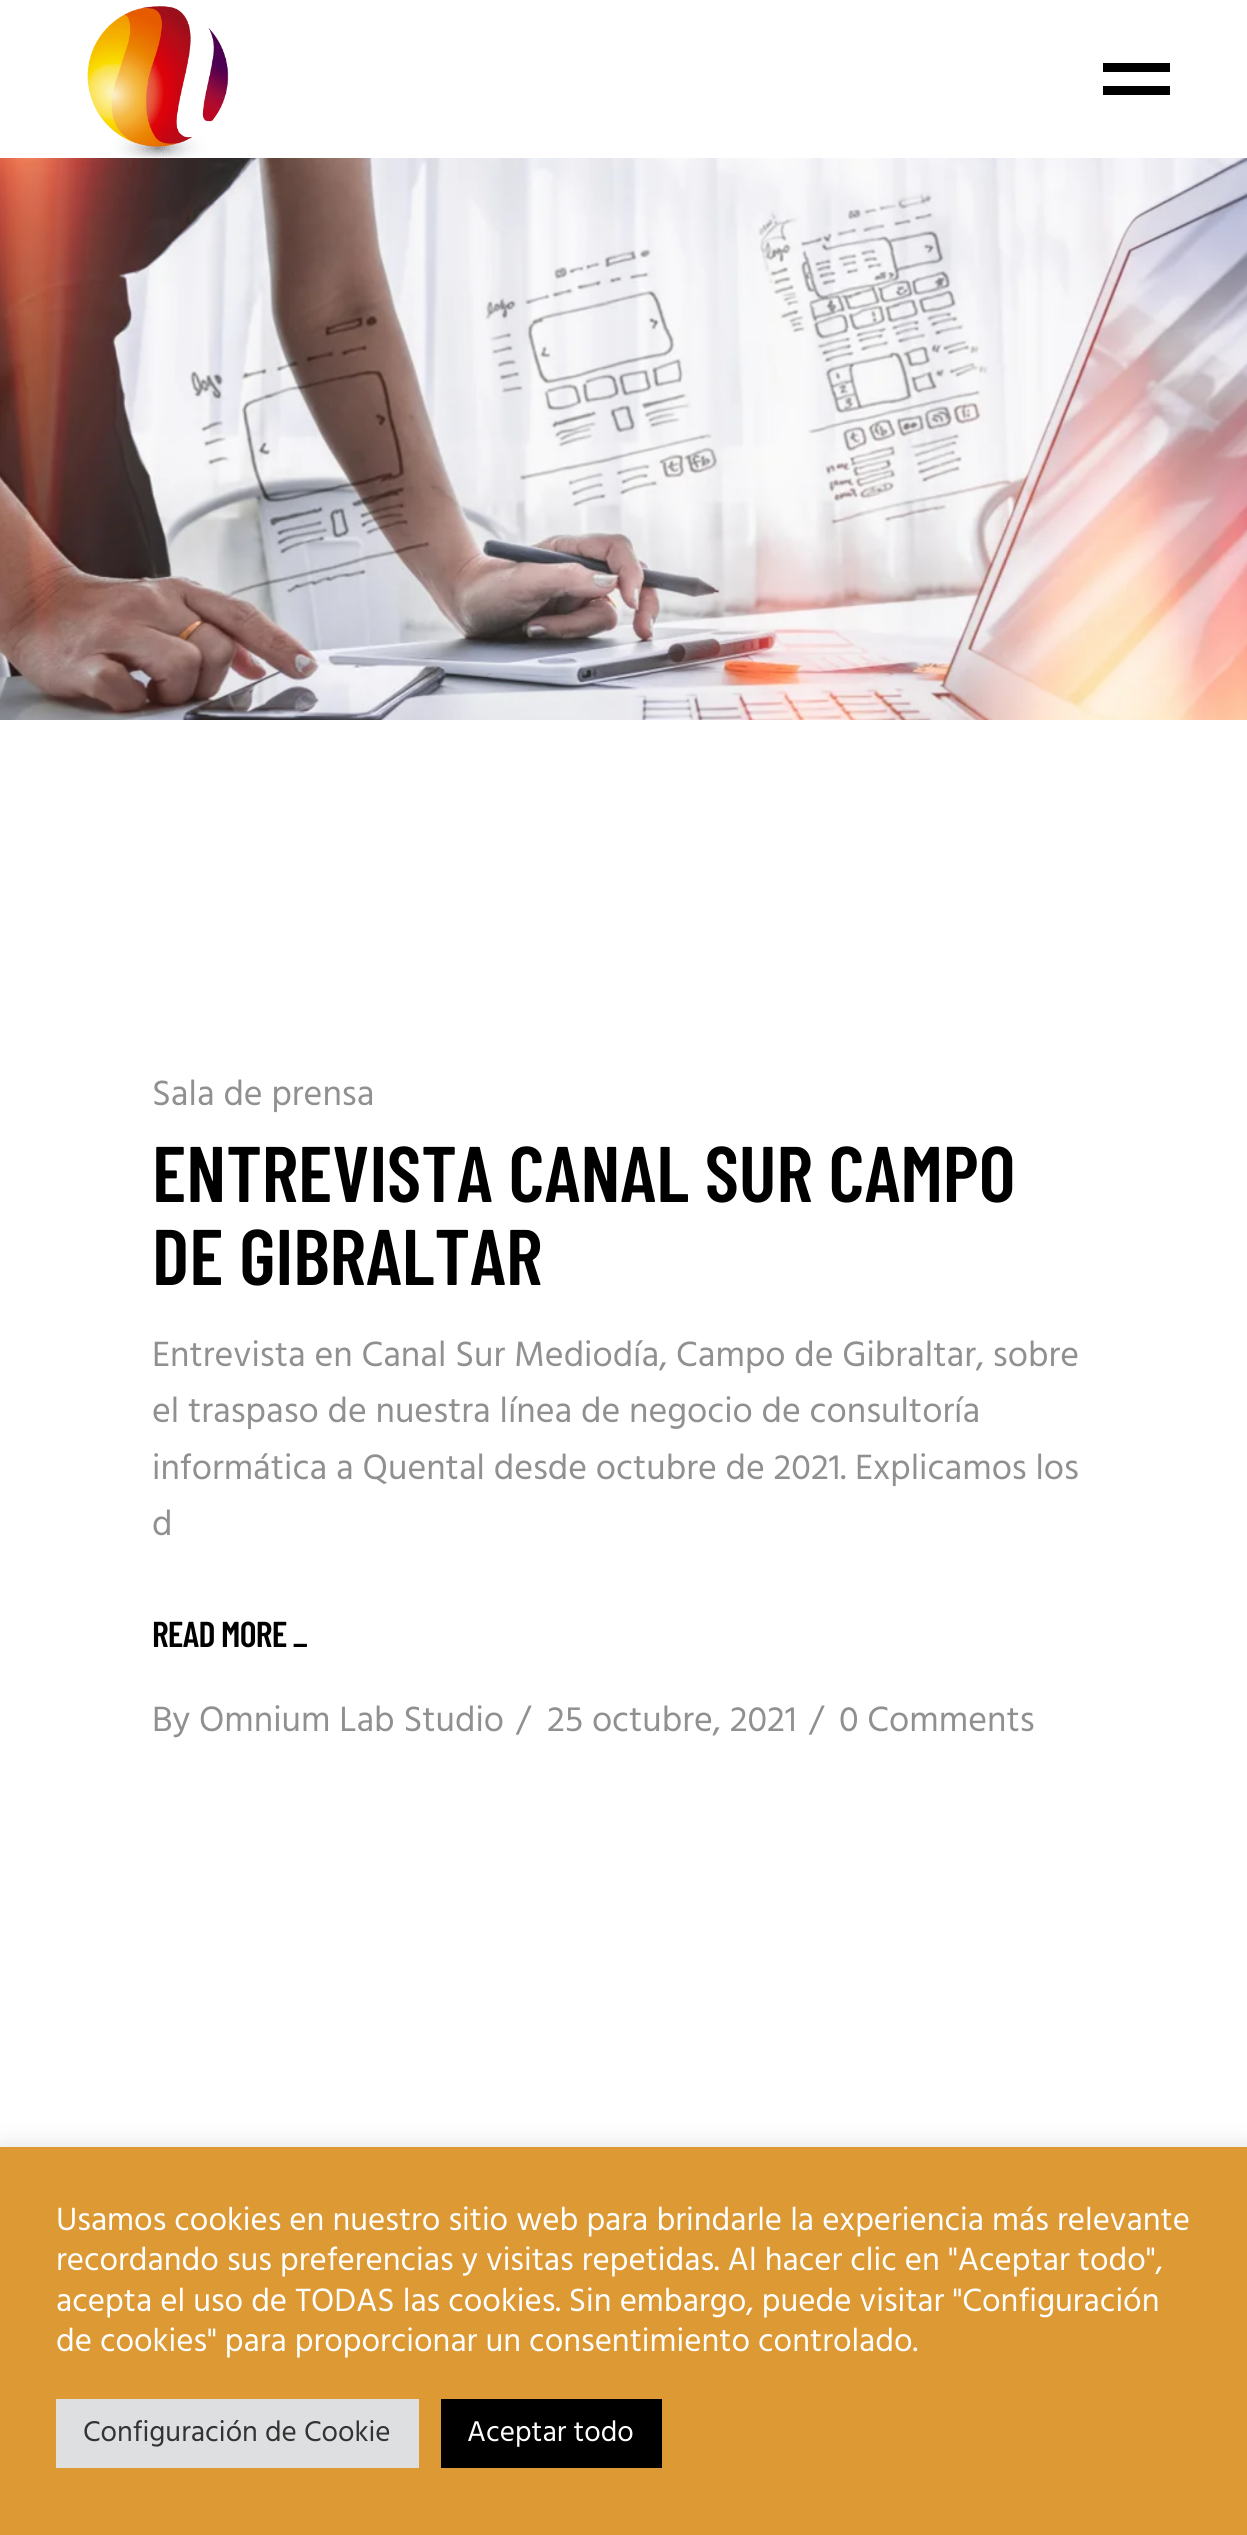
import math
import cairo

surface = cairo.ImageSurface(cairo.FORMAT_RGB24, 1247, 2535)
ctx = cairo.Context(surface)
options = cairo.FontOptions()
options.set_hint_metrics(cairo.HINT_METRICS_OFF)
options.set_hint_style(cairo.HINT_STYLE_NONE)
ctx.set_font_options(options)
ctx.set_miter_limit(4)


def set_color(code):
    ctx.set_source_rgb(*(v / 255 for v in bytes.fromhex(code[-6:])))


def draw_text(x, y, s, family, size, color, bold=False, italic=False):
    ctx.select_font_face(family, cairo.FONT_SLANT_ITALIC if italic else cairo.FONT_SLANT_NORMAL, cairo.FONT_WEIGHT_BOLD if bold else cairo.FONT_WEIGHT_NORMAL)
    ctx.set_font_size(size)
    set_color(color)
    ctx.move_to(x, y)
    ctx.show_text(s)


def draw_spaced(x, y, s, letter, word):
    ctx.move_to(x, y)
    for ch in s:
        ctx.show_text(ch)
        ctx.rel_move_to(letter + word * (ch == ' '), 0)


def fill_rect(x, y, w, h, color):
    set_color(color)
    ctx.rectangle(x, y, w, h)
    ctx.fill()


def rounded_rect(x, y, w, h, r):
    ctx.new_sub_path()
    for i, (u, v) in enumerate([(x + w - r, y + h - r), (x + r, y + h - r), (x + r, y + r), (x + w - r, y + r)]):
        ctx.arc(u, v, r, i * math.pi / 2, (i + 1) * math.pi / 2)
    ctx.close_path()


def draw_shadow(x, y, w, h, r, blur, alpha):
    ctx.push_group_with_content(cairo.CONTENT_ALPHA)
    ctx.set_operator(cairo.OPERATOR_SOURCE)
    for i in range(15, -16, -2):
        e = blur * i / 6
        if min(w, h) + 2 * e > 0:
            ctx.set_source_rgba(0, 0, 0, alpha * math.erfc((i - 1) / 8.5) / 2)
            rounded_rect(x - e, y - e, w + 2 * e, h + 2 * e, max(0, min(r + e + blur * .6, min(w, h) / 2 + e)))
            ctx.fill()
    ctx.mask(ctx.pop_group())


def draw_image(path, x, y, w, h):
    ctx.save()
    ctx.set_source_surface(cairo.ImageSurface.create_from_png(path), x, y)
    ctx.rectangle(x, y, w, h)
    ctx.fill()
    ctx.restore()


set_color("#ffffff")
ctx.paint()
draw_image("assets/img1.png", 87, 6, 142, 152)
fill_rect(1103, 63, 67, 9, "#000000")
fill_rect(1103, 86, 67, 9, "#000000")
draw_image("assets/img2.png", 0, 158, 1247, 562)
draw_text(152, 1105, "Sala de prensa", "Hind", 36, "#909090")
draw_text(152, 1202, "ENTREVISTA CANAL SUR CAMPO", "Barlow Condensed SemiBold", 78.75, "#000000")
draw_text(152, 1285, "DE GIBRALTAR", "Barlow Condensed SemiBold", 78.75, "#000000")
draw_text(152, 1366, "Entrevista en Canal Sur Mediodía, Campo de Gibraltar, sobre", "Hind", 36, "#909090")
draw_text(152, 1422, "el traspaso de nuestra línea de negocio de consultoría", "Hind", 36, "#909090")
draw_text(152, 1479, "informática a Quental desde octubre de 2021. Explicamos los", "Hind", 36, "#909090")
draw_text(152, 1535, "d", "Hind", 36, "#909090")
ctx.select_font_face("Barlow Condensed SemiBold")
set_color("#000000")
draw_spaced(152, 1647, "READ MORE _", -0.75, 0)
draw_text(152, 1731, "By Omnium Lab Studio", "Hind", 36, "#909090")
draw_text(516, 1731, "/", "Hind", 36, "#909090")
draw_text(547, 1731, "25 octubre, 2021", "Hind", 36, "#909090")
draw_text(809, 1731, "/", "Hind", 36, "#909090")
draw_text(839, 1731, "0 Comments", "Hind", 36, "#909090")
set_color("#acabab")
draw_shadow(0, 2144, 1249, 390, 0, 11, 0.3)
fill_rect(0, 2147, 1247, 388, "#dd9933")
draw_text(56, 2230, "Usamos cookies en nuestro sitio web para brindarle la experiencia más relevante", "Hind", 33, "#ffffff")
draw_text(56, 2270, "recordando sus preferencias y visitas repetidas. Al hacer clic en \"Aceptar todo\",", "Hind", 33, "#ffffff")
draw_text(56, 2311, "acepta el uso de TODAS las cookies. Sin embargo, puede visitar \"Configuración", "Hind", 33, "#ffffff")
draw_text(56, 2351, "de cookies\" para proporcionar un consentimiento controlado.", "Hind", 33, "#ffffff")
fill_rect(56, 2399, 363, 69, "#dedfe0")
draw_text(83, 2441, "Configuración de Cookie", "Hind", 29.25, "#333333")
fill_rect(441, 2399, 221, 69, "#000000")
draw_text(467, 2441, "Aceptar todo", "Hind", 29.25, "#ffffff")
surface.write_to_png("output.png")
